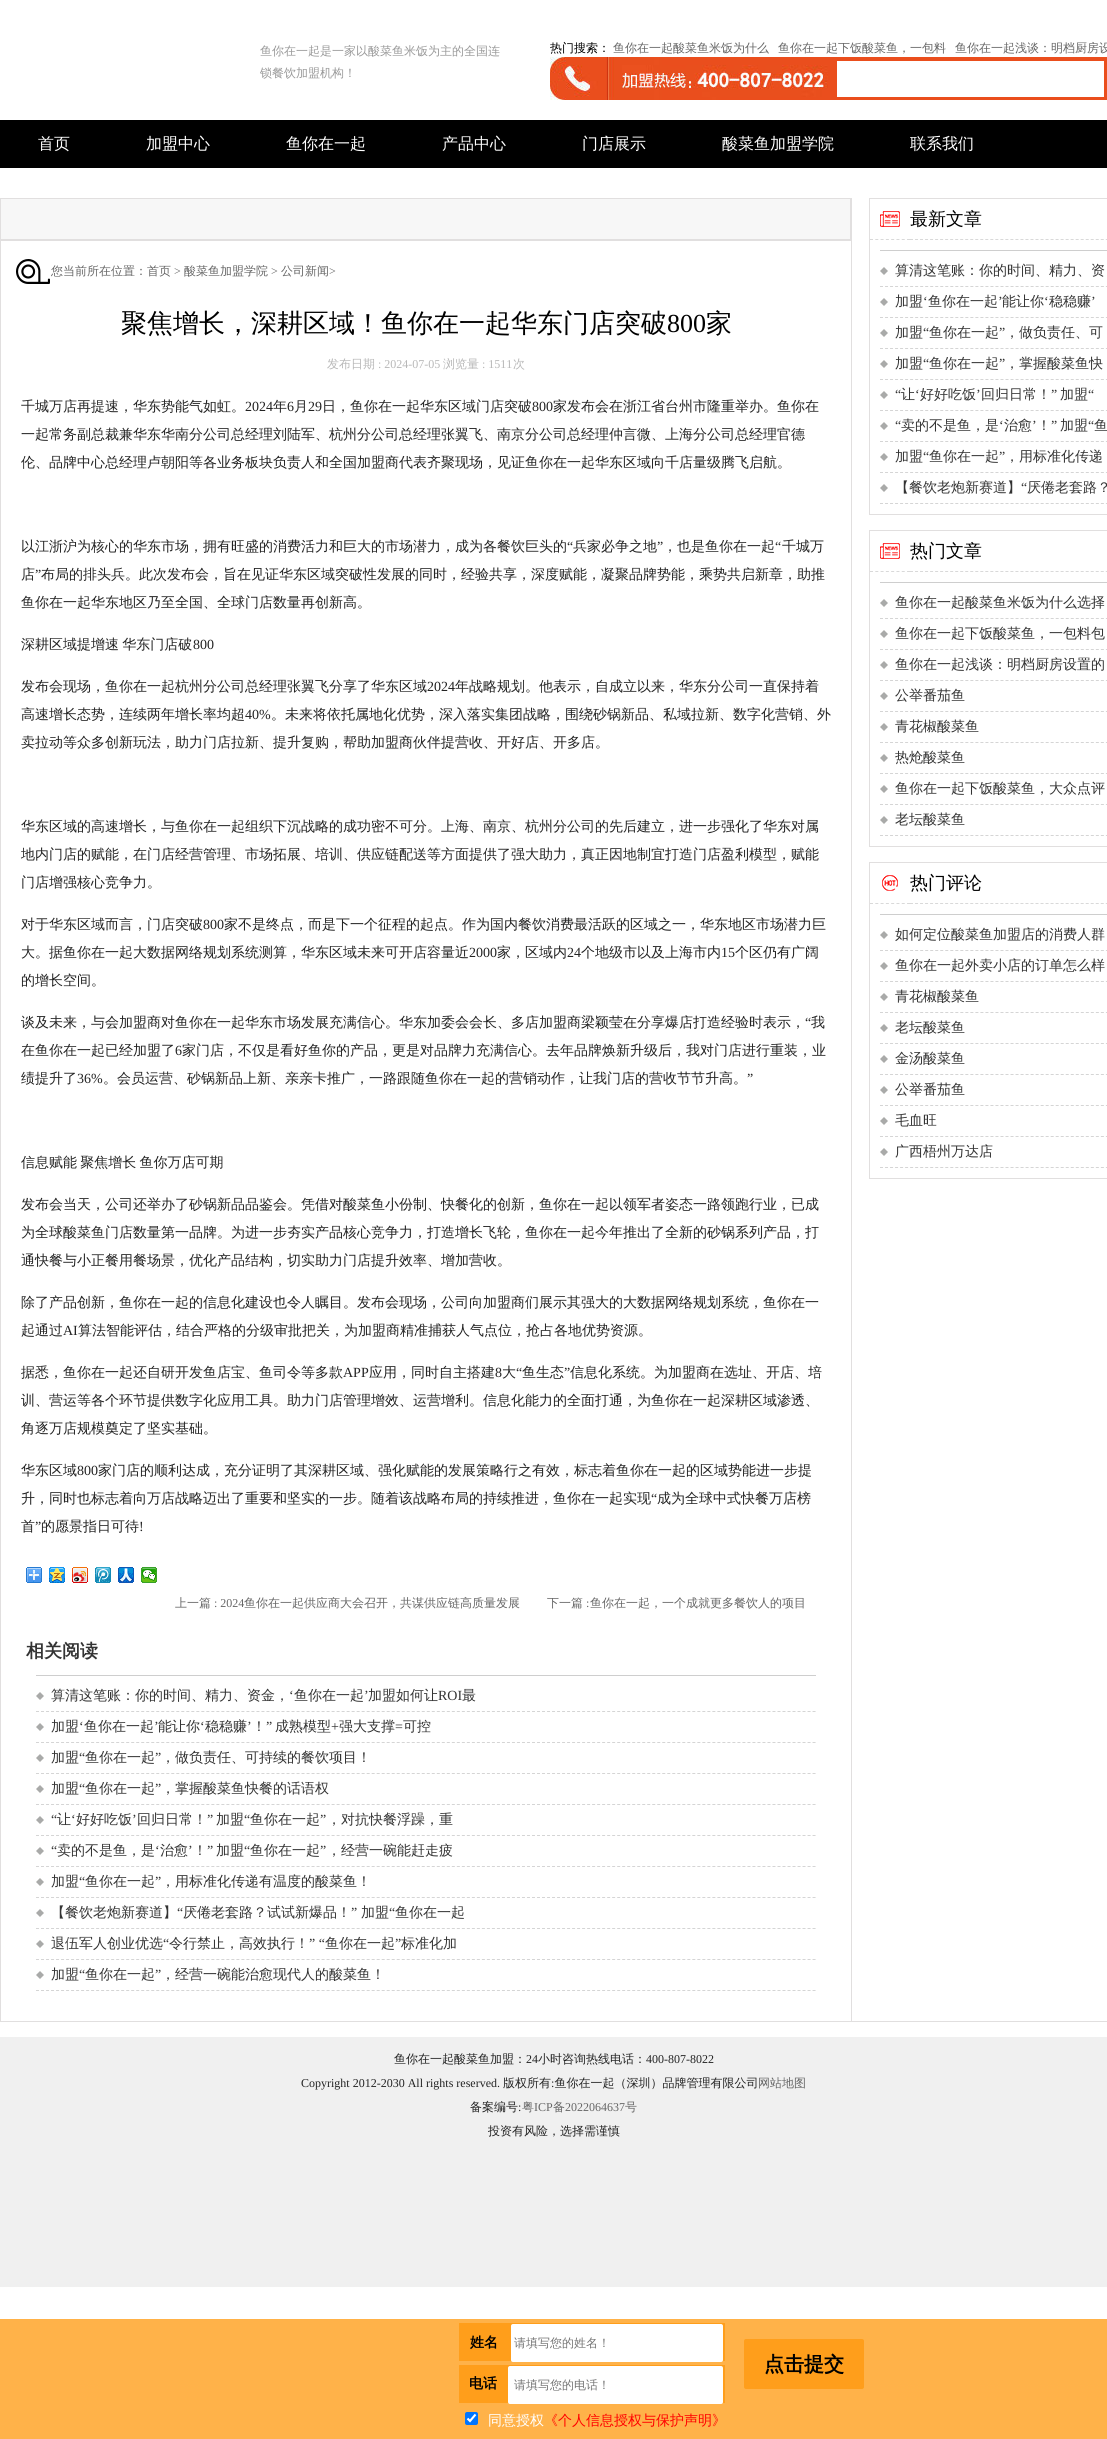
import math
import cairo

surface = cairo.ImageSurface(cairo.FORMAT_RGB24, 1107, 2439)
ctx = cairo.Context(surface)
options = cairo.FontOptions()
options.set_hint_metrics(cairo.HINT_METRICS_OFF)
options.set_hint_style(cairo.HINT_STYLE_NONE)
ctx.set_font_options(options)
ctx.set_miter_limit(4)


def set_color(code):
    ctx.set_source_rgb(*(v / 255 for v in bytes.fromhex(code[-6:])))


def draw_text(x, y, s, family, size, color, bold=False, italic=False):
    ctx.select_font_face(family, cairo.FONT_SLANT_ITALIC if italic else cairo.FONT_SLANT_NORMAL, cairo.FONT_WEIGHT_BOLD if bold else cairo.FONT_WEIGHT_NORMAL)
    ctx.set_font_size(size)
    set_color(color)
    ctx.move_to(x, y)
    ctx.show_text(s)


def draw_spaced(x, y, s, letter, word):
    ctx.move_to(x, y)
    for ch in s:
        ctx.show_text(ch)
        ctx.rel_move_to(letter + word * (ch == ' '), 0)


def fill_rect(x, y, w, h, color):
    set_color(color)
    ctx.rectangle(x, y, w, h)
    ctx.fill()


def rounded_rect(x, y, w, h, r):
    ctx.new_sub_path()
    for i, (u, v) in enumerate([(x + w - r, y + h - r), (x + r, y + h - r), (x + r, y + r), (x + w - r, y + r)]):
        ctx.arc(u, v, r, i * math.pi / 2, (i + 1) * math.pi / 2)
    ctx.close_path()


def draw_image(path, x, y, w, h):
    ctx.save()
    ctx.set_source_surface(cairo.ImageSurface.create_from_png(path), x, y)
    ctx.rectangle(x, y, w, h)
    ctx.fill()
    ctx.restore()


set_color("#ffffff")
ctx.paint()
draw_text(260, 55, "鱼你在一起是一家以酸菜鱼米饭为主的全国连", "WenQuanYi Zen Hei Medium", 12, "#999999")
draw_text(260, 77, "锁餐饮加盟机构！", "WenQuanYi Zen Hei Medium", 12, "#999999")
draw_text(550, 52, "热门搜索：", "WenQuanYi Zen Hei Medium", 12, "#000000")
draw_text(613, 52, "鱼你在一起酸菜鱼米饭为什么", "WenQuanYi Zen Hei Medium", 12, "#666666")
draw_text(778, 52, "鱼你在一起下饭酸菜鱼，一包料", "WenQuanYi Zen Hei Medium", 12, "#666666")
draw_text(955, 52, "鱼你在一起浅谈：明档厨房设", "WenQuanYi Zen Hei Medium", 12, "#666666")
draw_image("assets/img1.png", 550, 57, 278, 43)
fill_rect(828, 57, 279, 43, "#ea4e1d")
fill_rect(837, 61, 267, 36, "#ffffff")
fill_rect(0, 120, 1107, 48, "#000000")
draw_text(38, 149, "首页", "WenQuanYi Zen Hei Medium", 16, "#ffffff")
draw_text(146, 149, "加盟中心", "WenQuanYi Zen Hei Medium", 16, "#ffffff")
draw_text(286, 149, "鱼你在一起", "WenQuanYi Zen Hei Medium", 16, "#ffffff")
draw_text(442, 149, "产品中心", "WenQuanYi Zen Hei Medium", 16, "#ffffff")
draw_text(582, 149, "门店展示", "WenQuanYi Zen Hei Medium", 16, "#ffffff")
draw_text(722, 149, "酸菜鱼加盟学院", "WenQuanYi Zen Hei Medium", 16, "#ffffff")
draw_text(910, 149, "联系我们", "WenQuanYi Zen Hei Medium", 16, "#ffffff")
fill_rect(0, 2021, 1107, 1, "#e1dfdf")
fill_rect(0, 198, 1, 1824, "#e1dfdf")
fill_rect(851, 198, 1, 1823, "#e1dfdf")
fill_rect(1, 199, 849, 40, "#f7f7f7")
fill_rect(1, 198, 850, 1, "#e1dfdf")
fill_rect(850, 198, 1, 43, "#e1dfdf")
fill_rect(1, 239, 850, 2, "#e1dfdf")
draw_image("assets/img2.png", 16, 259, 34, 25)
draw_text(51, 275, "您当前所在位置：首页", "WenQuanYi Zen Hei Medium", 12, "#666666")
draw_text(174, 275, ">", "Liberation Serif", 12, "#666666")
draw_text(184, 275, "酸菜鱼加盟学院", "WenQuanYi Zen Hei Medium", 12, "#666666")
draw_text(271, 275, ">", "Liberation Serif", 12, "#666666")
draw_text(281, 275, "公司新闻", "WenQuanYi Zen Hei Medium", 12, "#666666")
draw_text(329, 275, ">", "Liberation Serif", 12, "#666666")
draw_text(121, 332, "聚焦增长，深耕区域！鱼你在一起华东门店突破", "WenQuanYi Zen Hei Medium", 26, "#000000")
draw_text(667, 332, "800", "Liberation Serif", 26, "#000000")
draw_text(706, 332, "家", "WenQuanYi Zen Hei Medium", 26, "#000000")
draw_text(327, 368, "发布日期", "WenQuanYi Zen Hei Medium", 12, "#b8b8b8")
draw_text(378, 368, ": 2024-07-05", "Liberation Serif", 12, "#b8b8b8")
draw_text(443, 368, "浏览量", "WenQuanYi Zen Hei Medium", 12, "#b8b8b8")
draw_text(482, 368, ": 1511", "Liberation Serif", 12, "#b8b8b8")
draw_text(513, 368, "次", "WenQuanYi Zen Hei Medium", 12, "#b8b8b8")
draw_text(21, 411, "千城万店再提速，华东势能气如虹。", "WenQuanYi Zen Hei Medium", 14, "#232323")
draw_text(245, 411, "2024", "Liberation Serif", 14, "#232323")
draw_text(273, 411, "年", "WenQuanYi Zen Hei Medium", 14, "#232323")
draw_text(287, 411, "6", "Liberation Serif", 14, "#232323")
draw_text(294, 411, "月", "WenQuanYi Zen Hei Medium", 14, "#232323")
draw_text(308, 411, "29", "Liberation Serif", 14, "#232323")
draw_text(322, 411, "日，鱼你在一起华东区域门店突破", "WenQuanYi Zen Hei Medium", 14, "#232323")
draw_text(532, 411, "800", "Liberation Serif", 14, "#232323")
draw_text(553, 411, "家发布会在浙江省台州市隆重举办。鱼你在", "WenQuanYi Zen Hei Medium", 14, "#232323")
draw_text(21, 439, "一起常务副总裁兼华东华南分公司总经理刘陆军、杭州分公司总经理张翼飞、南京分公司总经理仲言微、上海分公司总经理官德", "WenQuanYi Zen Hei Medium", 14, "#232323")
draw_text(21, 467, "伦、品牌中心总经理卢朝阳等各业务板块负责人和全国加盟商代表齐聚现场，见证鱼你在一起华东区域向千店量级腾飞启航。", "WenQuanYi Zen Hei Medium", 14, "#232323")
draw_text(21, 551, "以江浙沪为核心的华东市场，拥有旺盛的消费活力和巨大的市场潜力，成为各餐饮巨头的", "WenQuanYi Zen Hei Medium", 14, "#232323")
draw_text(567, 551, "“", "Liberation Serif", 14, "#232323")
draw_text(573, 551, "兵家必争之地", "WenQuanYi Zen Hei Medium", 14, "#232323")
draw_text(657, 551, "”", "Liberation Serif", 14, "#232323")
draw_text(663, 551, "，也是鱼你在一起", "WenQuanYi Zen Hei Medium", 14, "#232323")
draw_text(775, 551, "“", "Liberation Serif", 14, "#232323")
draw_text(782, 551, "千城万", "WenQuanYi Zen Hei Medium", 14, "#232323")
draw_text(21, 579, "店", "WenQuanYi Zen Hei Medium", 14, "#232323")
draw_text(35, 579, "”", "Liberation Serif", 14, "#232323")
draw_text(41, 579, "布局的排头兵。此次发布会，旨在见证华东区域突破性发展的同时，经验共享，深度赋能，凝聚品牌势能，乘势共启新章，助推", "WenQuanYi Zen Hei Medium", 14, "#232323")
draw_text(21, 607, "鱼你在一起华东地区乃至全国、全球门店数量再创新高。", "WenQuanYi Zen Hei Medium", 14, "#232323")
draw_spaced(21, 649, "深耕区域提增速 华东门店破", 0, -1)
draw_text(193, 649, "800", "Liberation Serif", 14, "#232323")
draw_text(21, 691, "发布会现场，鱼你在一起杭州分公司总经理张翼飞分享了华东区域", "WenQuanYi Zen Hei Medium", 14, "#232323")
draw_text(427, 691, "2024", "Liberation Serif", 14, "#232323")
draw_text(455, 691, "年战略规划。他表示，自成立以来，华东分公司一直保持着", "WenQuanYi Zen Hei Medium", 14, "#232323")
draw_text(21, 719, "高速增长态势，连续两年增长率均超", "WenQuanYi Zen Hei Medium", 14, "#232323")
draw_text(245, 719, "40%", "Liberation Serif", 14, "#232323")
draw_text(271, 719, "。未来将依托属地化优势，深入落实集团战略，围绕砂锅新品、私域拉新、数字化营销、外", "WenQuanYi Zen Hei Medium", 14, "#232323")
draw_text(21, 747, "卖拉动等众多创新玩法，助力门店拉新、提升复购，帮助加盟商伙伴提营收、开好店、开多店。", "WenQuanYi Zen Hei Medium", 14, "#232323")
draw_text(21, 831, "华东区域的高速增长，与鱼你在一起组织下沉战略的成功密不可分。上海、南京、杭州分公司的先后建立，进一步强化了华东对属", "WenQuanYi Zen Hei Medium", 14, "#232323")
draw_text(21, 859, "地内门店的赋能，在门店经营管理、市场拓展、培训、供应链配送等方面提供了强大助力，真正因地制宜打造门店盈利模型，赋能", "WenQuanYi Zen Hei Medium", 14, "#232323")
draw_text(21, 887, "门店增强核心竞争力。", "WenQuanYi Zen Hei Medium", 14, "#232323")
draw_text(21, 929, "对于华东区域而言，门店突破", "WenQuanYi Zen Hei Medium", 14, "#232323")
draw_text(203, 929, "800", "Liberation Serif", 14, "#232323")
draw_text(224, 929, "家不是终点，而是下一个征程的起点。作为国内餐饮消费最活跃的区域之一，华东地区市场潜力巨", "WenQuanYi Zen Hei Medium", 14, "#232323")
draw_text(21, 957, "大。据鱼你在一起大数据网络规划系统测算，华东区域未来可开店容量近", "WenQuanYi Zen Hei Medium", 14, "#232323")
draw_text(469, 957, "2000", "Liberation Serif", 14, "#232323")
draw_text(497, 957, "家，区域内", "WenQuanYi Zen Hei Medium", 14, "#232323")
draw_text(567, 957, "24", "Liberation Serif", 14, "#232323")
draw_text(581, 957, "个地级市以及上海市内", "WenQuanYi Zen Hei Medium", 14, "#232323")
draw_text(721, 957, "15", "Liberation Serif", 14, "#232323")
draw_text(735, 957, "个区仍有广阔", "WenQuanYi Zen Hei Medium", 14, "#232323")
draw_text(21, 985, "的增长空间。", "WenQuanYi Zen Hei Medium", 14, "#232323")
draw_text(21, 1027, "谈及未来，与会加盟商对鱼你在一起华东市场发展充满信心。华东加委会会长、多店加盟商梁颖莹在分享爆店打造经验时表示，", "WenQuanYi Zen Hei Medium", 14, "#232323")
draw_text(805, 1027, "“", "Liberation Serif", 14, "#232323")
draw_text(811, 1027, "我", "WenQuanYi Zen Hei Medium", 14, "#232323")
draw_text(21, 1055, "在鱼你在一起已经加盟了", "WenQuanYi Zen Hei Medium", 14, "#232323")
draw_text(175, 1055, "6", "Liberation Serif", 14, "#232323")
draw_text(182, 1055, "家门店，不仅是看好鱼你的产品，更是对品牌力充满信心。去年品牌焕新升级后，我对门店进行重装，业", "WenQuanYi Zen Hei Medium", 14, "#232323")
draw_text(21, 1083, "绩提升了", "WenQuanYi Zen Hei Medium", 14, "#232323")
draw_text(77, 1083, "36%", "Liberation Serif", 14, "#232323")
draw_text(103, 1083, "。会员运营、砂锅新品上新、亲亲卡推广，一路跟随鱼你在一起的营销动作，让我门店的营收节节升高。", "WenQuanYi Zen Hei Medium", 14, "#232323")
draw_text(747, 1083, "”", "Liberation Serif", 14, "#232323")
ctx.select_font_face("WenQuanYi Zen Hei Medium")
draw_spaced(21, 1167, "信息赋能 聚焦增长 鱼你万店可期", 0, -1)
draw_text(21, 1209, "发布会当天，公司还举办了砂锅新品品鉴会。凭借对酸菜鱼小份制、快餐化的创新，鱼你在一起以领军者姿态一路领跑行业，已成", "WenQuanYi Zen Hei Medium", 14, "#232323")
draw_text(21, 1237, "为全球酸菜鱼门店数量第一品牌。为进一步夯实产品核心竞争力，打造增长飞轮，鱼你在一起今年推出了全新的砂锅系列产品，打", "WenQuanYi Zen Hei Medium", 14, "#232323")
draw_text(21, 1265, "通快餐与小正餐用餐场景，优化产品结构，切实助力门店提升效率、增加营收。", "WenQuanYi Zen Hei Medium", 14, "#232323")
draw_text(21, 1307, "除了产品创新，鱼你在一起的信息化建设也令人瞩目。发布会现场，公司向加盟商们展示其强大的大数据网络规划系统，鱼你在一", "WenQuanYi Zen Hei Medium", 14, "#232323")
draw_text(21, 1335, "起通过", "WenQuanYi Zen Hei Medium", 14, "#232323")
draw_text(63, 1335, "AI", "Liberation Serif", 14, "#232323")
draw_text(78, 1335, "算法智能评估，结合严格的分级审批把关，为加盟商精准捕获人气点位，抢占各地优势资源。", "WenQuanYi Zen Hei Medium", 14, "#232323")
draw_text(21, 1377, "据悉，鱼你在一起还自研开发鱼店宝、鱼司令等多款", "WenQuanYi Zen Hei Medium", 14, "#232323")
draw_text(343, 1377, "APP", "Liberation Serif", 14, "#232323")
draw_text(369, 1377, "应用，同时自主搭建", "WenQuanYi Zen Hei Medium", 14, "#232323")
draw_text(495, 1377, "8", "Liberation Serif", 14, "#232323")
draw_text(502, 1377, "大", "WenQuanYi Zen Hei Medium", 14, "#232323")
draw_text(516, 1377, "“", "Liberation Serif", 14, "#232323")
draw_text(522, 1377, "鱼生态", "WenQuanYi Zen Hei Medium", 14, "#232323")
draw_text(564, 1377, "”", "Liberation Serif", 14, "#232323")
draw_text(570, 1377, "信息化系统。为加盟商在选址、开店、培", "WenQuanYi Zen Hei Medium", 14, "#232323")
draw_text(21, 1405, "训、营运等各个环节提供数字化应用工具。助力门店管理增效、运营增利。信息化能力的全面打通，为鱼你在一起深耕区域渗透、", "WenQuanYi Zen Hei Medium", 14, "#232323")
draw_text(21, 1433, "角逐万店规模奠定了坚实基础。", "WenQuanYi Zen Hei Medium", 14, "#232323")
draw_text(21, 1475, "华东区域", "WenQuanYi Zen Hei Medium", 14, "#232323")
draw_text(77, 1475, "800", "Liberation Serif", 14, "#232323")
draw_text(98, 1475, "家门店的顺利达成，充分证明了其深耕区域、强化赋能的发展策略行之有效，标志着鱼你在一起的区域势能进一步提", "WenQuanYi Zen Hei Medium", 14, "#232323")
draw_text(21, 1503, "升，同时也标志着向万店战略迈出了重要和坚实的一步。随着该战略布局的持续推进，鱼你在一起实现", "WenQuanYi Zen Hei Medium", 14, "#232323")
draw_text(651, 1503, "“", "Liberation Serif", 14, "#232323")
draw_text(657, 1503, "成为全球中式快餐万店榜", "WenQuanYi Zen Hei Medium", 14, "#232323")
draw_text(21, 1531, "首", "WenQuanYi Zen Hei Medium", 14, "#232323")
draw_text(35, 1531, "”", "Liberation Serif", 14, "#232323")
draw_text(41, 1531, "的愿景指日可待", "WenQuanYi Zen Hei Medium", 14, "#232323")
draw_text(139, 1531, "!", "Liberation Serif", 14, "#232323")
draw_image("assets/img3.png", 26, 1567, 16, 16)
draw_image("assets/img4.png", 49, 1567, 16, 16)
draw_image("assets/img5.png", 72, 1567, 16, 16)
draw_image("assets/img6.png", 95, 1567, 16, 16)
draw_image("assets/img7.png", 118, 1567, 16, 16)
draw_image("assets/img8.png", 141, 1567, 16, 16)
draw_text(175, 1607, "上一篇", "WenQuanYi Zen Hei Medium", 12, "#666666")
draw_text(214, 1607, ": 2024", "Liberation Serif", 12, "#666666")
draw_text(244, 1607, "鱼你在一起供应商大会召开，共谋供应链高质量发展", "WenQuanYi Zen Hei Medium", 12, "#666666")
draw_text(547, 1607, "下一篇", "WenQuanYi Zen Hei Medium", 12, "#666666")
draw_text(586, 1607, ":", "Liberation Serif", 12, "#666666")
draw_text(590, 1607, "鱼你在一起，一个成就更多餐饮人的项目", "WenQuanYi Zen Hei Medium", 12, "#666666")
draw_text(26, 1657, "相关阅读", "WenQuanYi Zen Hei", 18, "#333333", bold=True)
fill_rect(36, 1675, 780, 1, "#cecece")
draw_image("assets/img9.png", 36, 1692, 8, 8)
ctx.new_path()
ctx.move_to(36, 1711.5)
ctx.line_to(816, 1711.5)
set_color("#d5d5d5")
ctx.set_line_width(1)
ctx.set_dash([3, 2.01])
ctx.stroke()
draw_text(51, 1700, "算清这笔账：你的时间、精力、资金，", "WenQuanYi Zen Hei Medium", 14, "#333333")
draw_text(289, 1700, "‘", "Liberation Serif", 14, "#333333")
draw_text(294, 1700, "鱼你在一起", "WenQuanYi Zen Hei Medium", 14, "#333333")
draw_text(364, 1700, "’", "Liberation Serif", 14, "#333333")
draw_text(368, 1700, "加盟如何让", "WenQuanYi Zen Hei Medium", 14, "#333333")
draw_text(438, 1700, "ROI", "Liberation Serif", 14, "#333333")
draw_text(462, 1700, "最", "WenQuanYi Zen Hei Medium", 14, "#333333")
draw_image("assets/img9.png", 36, 1723, 8, 8)
ctx.new_path()
ctx.move_to(36, 1742.5)
ctx.line_to(816, 1742.5)
set_color("#d5d5d5")
ctx.stroke()
draw_text(51, 1731, "加盟", "WenQuanYi Zen Hei Medium", 14, "#333333")
draw_text(79, 1731, "‘", "Liberation Serif", 14, "#333333")
draw_text(84, 1731, "鱼你在一起", "WenQuanYi Zen Hei Medium", 14, "#333333")
draw_text(154, 1731, "’", "Liberation Serif", 14, "#333333")
draw_text(158, 1731, "能让你", "WenQuanYi Zen Hei Medium", 14, "#333333")
draw_text(200, 1731, "‘", "Liberation Serif", 14, "#333333")
draw_text(205, 1731, "稳稳赚", "WenQuanYi Zen Hei Medium", 14, "#333333")
draw_text(247, 1731, "’", "Liberation Serif", 14, "#333333")
draw_text(252, 1731, "！", "WenQuanYi Zen Hei Medium", 14, "#333333")
draw_text(266, 1731, "”", "Liberation Serif", 14, "#333333")
draw_text(275, 1731, "成熟模型", "WenQuanYi Zen Hei Medium", 14, "#333333")
draw_text(331, 1731, "+", "Liberation Serif", 14, "#333333")
draw_text(339, 1731, "强大支撑", "WenQuanYi Zen Hei Medium", 14, "#333333")
draw_text(395, 1731, "=", "Liberation Serif", 14, "#333333")
draw_text(403, 1731, "可控", "WenQuanYi Zen Hei Medium", 14, "#333333")
draw_image("assets/img9.png", 36, 1754, 8, 8)
ctx.new_path()
ctx.move_to(36, 1773.5)
ctx.line_to(816, 1773.5)
set_color("#d5d5d5")
ctx.stroke()
draw_text(51, 1762, "加盟", "WenQuanYi Zen Hei Medium", 14, "#333333")
draw_text(79, 1762, "“", "Liberation Serif", 14, "#333333")
draw_text(85, 1762, "鱼你在一起", "WenQuanYi Zen Hei Medium", 14, "#333333")
draw_text(155, 1762, "”", "Liberation Serif", 14, "#333333")
draw_text(161, 1762, "，做负责任、可持续的餐饮项目！", "WenQuanYi Zen Hei Medium", 14, "#333333")
draw_image("assets/img9.png", 36, 1785, 8, 8)
ctx.new_path()
ctx.move_to(36, 1804.5)
ctx.line_to(816, 1804.5)
set_color("#d5d5d5")
ctx.stroke()
draw_text(51, 1793, "加盟", "WenQuanYi Zen Hei Medium", 14, "#333333")
draw_text(79, 1793, "“", "Liberation Serif", 14, "#333333")
draw_text(85, 1793, "鱼你在一起", "WenQuanYi Zen Hei Medium", 14, "#333333")
draw_text(155, 1793, "”", "Liberation Serif", 14, "#333333")
draw_text(161, 1793, "，掌握酸菜鱼快餐的话语权", "WenQuanYi Zen Hei Medium", 14, "#333333")
draw_image("assets/img9.png", 36, 1816, 8, 8)
ctx.new_path()
ctx.move_to(36, 1835.5)
ctx.line_to(816, 1835.5)
set_color("#d5d5d5")
ctx.stroke()
draw_text(51, 1824, "“", "Liberation Serif", 14, "#333333")
draw_text(57, 1824, "让", "WenQuanYi Zen Hei Medium", 14, "#333333")
draw_text(71, 1824, "‘", "Liberation Serif", 14, "#333333")
draw_text(76, 1824, "好好吃饭", "WenQuanYi Zen Hei Medium", 14, "#333333")
draw_text(132, 1824, "’", "Liberation Serif", 14, "#333333")
draw_text(137, 1824, "回归日常！", "WenQuanYi Zen Hei Medium", 14, "#333333")
draw_text(207, 1824, "”", "Liberation Serif", 14, "#333333")
draw_text(216, 1824, "加盟", "WenQuanYi Zen Hei Medium", 14, "#333333")
draw_text(244, 1824, "“", "Liberation Serif", 14, "#333333")
draw_text(250, 1824, "鱼你在一起", "WenQuanYi Zen Hei Medium", 14, "#333333")
draw_text(320, 1824, "”", "Liberation Serif", 14, "#333333")
draw_text(327, 1824, "，对抗快餐浮躁，重", "WenQuanYi Zen Hei Medium", 14, "#333333")
draw_image("assets/img9.png", 36, 1847, 8, 8)
ctx.new_path()
ctx.move_to(36, 1866.5)
ctx.line_to(816, 1866.5)
set_color("#d5d5d5")
ctx.stroke()
draw_text(51, 1855, "“", "Liberation Serif", 14, "#333333")
draw_text(57, 1855, "卖的不是鱼，是", "WenQuanYi Zen Hei Medium", 14, "#333333")
draw_text(155, 1855, "‘", "Liberation Serif", 14, "#333333")
draw_text(160, 1855, "治愈", "WenQuanYi Zen Hei Medium", 14, "#333333")
draw_text(188, 1855, "’", "Liberation Serif", 14, "#333333")
draw_text(193, 1855, "！", "WenQuanYi Zen Hei Medium", 14, "#333333")
draw_text(207, 1855, "”", "Liberation Serif", 14, "#333333")
draw_text(216, 1855, "加盟", "WenQuanYi Zen Hei Medium", 14, "#333333")
draw_text(244, 1855, "“", "Liberation Serif", 14, "#333333")
draw_text(250, 1855, "鱼你在一起", "WenQuanYi Zen Hei Medium", 14, "#333333")
draw_text(320, 1855, "”", "Liberation Serif", 14, "#333333")
draw_text(327, 1855, "，经营一碗能赶走疲", "WenQuanYi Zen Hei Medium", 14, "#333333")
draw_image("assets/img9.png", 36, 1878, 8, 8)
ctx.new_path()
ctx.move_to(36, 1897.5)
ctx.line_to(816, 1897.5)
set_color("#d5d5d5")
ctx.stroke()
draw_text(51, 1886, "加盟", "WenQuanYi Zen Hei Medium", 14, "#333333")
draw_text(79, 1886, "“", "Liberation Serif", 14, "#333333")
draw_text(85, 1886, "鱼你在一起", "WenQuanYi Zen Hei Medium", 14, "#333333")
draw_text(155, 1886, "”", "Liberation Serif", 14, "#333333")
draw_text(161, 1886, "，用标准化传递有温度的酸菜鱼！", "WenQuanYi Zen Hei Medium", 14, "#333333")
draw_image("assets/img9.png", 36, 1909, 8, 8)
ctx.new_path()
ctx.move_to(36, 1928.5)
ctx.line_to(816, 1928.5)
set_color("#d5d5d5")
ctx.stroke()
draw_text(51, 1917, "【餐饮老炮新赛道】", "WenQuanYi Zen Hei Medium", 14, "#333333")
draw_text(177, 1917, "“", "Liberation Serif", 14, "#333333")
draw_text(183, 1917, "厌倦老套路？试试新爆品！", "WenQuanYi Zen Hei Medium", 14, "#333333")
draw_text(351, 1917, "”", "Liberation Serif", 14, "#333333")
draw_text(361, 1917, "加盟", "WenQuanYi Zen Hei Medium", 14, "#333333")
draw_text(389, 1917, "“", "Liberation Serif", 14, "#333333")
draw_text(395, 1917, "鱼你在一起", "WenQuanYi Zen Hei Medium", 14, "#333333")
draw_image("assets/img9.png", 36, 1940, 8, 8)
ctx.new_path()
ctx.move_to(36, 1959.5)
ctx.line_to(816, 1959.5)
set_color("#d5d5d5")
ctx.stroke()
draw_text(51, 1948, "退伍军人创业优选", "WenQuanYi Zen Hei Medium", 14, "#333333")
draw_text(163, 1948, "“", "Liberation Serif", 14, "#333333")
draw_text(169, 1948, "令行禁止，高效执行！", "WenQuanYi Zen Hei Medium", 14, "#333333")
draw_text(309, 1948, "” “", "Liberation Serif", 14, "#333333")
draw_text(325, 1948, "鱼你在一起", "WenQuanYi Zen Hei Medium", 14, "#333333")
draw_text(395, 1948, "”", "Liberation Serif", 14, "#333333")
draw_text(401, 1948, "标准化加", "WenQuanYi Zen Hei Medium", 14, "#333333")
draw_image("assets/img9.png", 36, 1971, 8, 8)
ctx.new_path()
ctx.move_to(36, 1990.5)
ctx.line_to(816, 1990.5)
set_color("#d5d5d5")
ctx.stroke()
draw_text(51, 1979, "加盟", "WenQuanYi Zen Hei Medium", 14, "#333333")
draw_text(79, 1979, "“", "Liberation Serif", 14, "#333333")
draw_text(85, 1979, "鱼你在一起", "WenQuanYi Zen Hei Medium", 14, "#333333")
draw_text(155, 1979, "”", "Liberation Serif", 14, "#333333")
draw_text(161, 1979, "，经营一碗能治愈现代人的酸菜鱼！", "WenQuanYi Zen Hei Medium", 14, "#333333")
fill_rect(869, 198, 238, 1, "#e1dfdf")
fill_rect(869, 514, 238, 1, "#e1dfdf")
fill_rect(869, 198, 1, 317, "#e1dfdf")
ctx.new_path()
ctx.move_to(870, 239.5)
ctx.line_to(910, 239.5)
set_color("#d9d9d9")
ctx.set_dash([3, 2.29])
ctx.stroke()
draw_image("assets/img10.png", 880, 211, 20, 16)
ctx.new_path()
ctx.move_to(910, 239.5)
ctx.line_to(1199, 239.5)
ctx.set_dash([3, 2.02])
ctx.stroke()
draw_text(910, 225, "最新文章", "WenQuanYi Zen Hei Medium", 18, "#000000")
fill_rect(880, 250, 227, 1, "#cecece")
draw_image("assets/img9.png", 880, 267, 8, 8)
ctx.new_path()
ctx.move_to(880, 286.5)
ctx.line_to(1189, 286.5)
set_color("#d5d5d5")
ctx.stroke()
draw_text(895, 275, "算清这笔账：你的时间、精力、资", "WenQuanYi Zen Hei Medium", 14, "#333333")
draw_image("assets/img9.png", 880, 298, 8, 8)
ctx.new_path()
ctx.move_to(880, 317.5)
ctx.line_to(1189, 317.5)
set_color("#d5d5d5")
ctx.stroke()
draw_text(895, 306, "加盟", "WenQuanYi Zen Hei Medium", 14, "#333333")
draw_text(923, 306, "‘", "Liberation Serif", 14, "#333333")
draw_text(928, 306, "鱼你在一起", "WenQuanYi Zen Hei Medium", 14, "#333333")
draw_text(998, 306, "’", "Liberation Serif", 14, "#333333")
draw_text(1002, 306, "能让你", "WenQuanYi Zen Hei Medium", 14, "#333333")
draw_text(1044, 306, "‘", "Liberation Serif", 14, "#333333")
draw_text(1049, 306, "稳稳赚", "WenQuanYi Zen Hei Medium", 14, "#333333")
draw_text(1091, 306, "’", "Liberation Serif", 14, "#333333")
draw_image("assets/img9.png", 880, 329, 8, 8)
ctx.new_path()
ctx.move_to(880, 348.5)
ctx.line_to(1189, 348.5)
set_color("#d5d5d5")
ctx.stroke()
draw_text(895, 337, "加盟", "WenQuanYi Zen Hei Medium", 14, "#333333")
draw_text(923, 337, "“", "Liberation Serif", 14, "#333333")
draw_text(929, 337, "鱼你在一起", "WenQuanYi Zen Hei Medium", 14, "#333333")
draw_text(999, 337, "”", "Liberation Serif", 14, "#333333")
draw_text(1005, 337, "，做负责任、可", "WenQuanYi Zen Hei Medium", 14, "#333333")
draw_image("assets/img9.png", 880, 360, 8, 8)
ctx.new_path()
ctx.move_to(880, 379.5)
ctx.line_to(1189, 379.5)
set_color("#d5d5d5")
ctx.stroke()
draw_text(895, 368, "加盟", "WenQuanYi Zen Hei Medium", 14, "#333333")
draw_text(923, 368, "“", "Liberation Serif", 14, "#333333")
draw_text(929, 368, "鱼你在一起", "WenQuanYi Zen Hei Medium", 14, "#333333")
draw_text(999, 368, "”", "Liberation Serif", 14, "#333333")
draw_text(1005, 368, "，掌握酸菜鱼快", "WenQuanYi Zen Hei Medium", 14, "#333333")
draw_image("assets/img9.png", 880, 391, 8, 8)
ctx.new_path()
ctx.move_to(880, 410.5)
ctx.line_to(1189, 410.5)
set_color("#d5d5d5")
ctx.stroke()
draw_text(895, 399, "“", "Liberation Serif", 14, "#333333")
draw_text(901, 399, "让", "WenQuanYi Zen Hei Medium", 14, "#333333")
draw_text(915, 399, "‘", "Liberation Serif", 14, "#333333")
draw_text(920, 399, "好好吃饭", "WenQuanYi Zen Hei Medium", 14, "#333333")
draw_text(976, 399, "’", "Liberation Serif", 14, "#333333")
draw_text(981, 399, "回归日常！", "WenQuanYi Zen Hei Medium", 14, "#333333")
draw_text(1051, 399, "”", "Liberation Serif", 14, "#333333")
draw_text(1060, 399, "加盟", "WenQuanYi Zen Hei Medium", 14, "#333333")
draw_text(1088, 399, "“", "Liberation Serif", 14, "#333333")
draw_image("assets/img9.png", 880, 422, 8, 8)
ctx.new_path()
ctx.move_to(880, 441.5)
ctx.line_to(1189, 441.5)
set_color("#d5d5d5")
ctx.stroke()
draw_text(895, 430, "“", "Liberation Serif", 14, "#333333")
draw_text(901, 430, "卖的不是鱼，是", "WenQuanYi Zen Hei Medium", 14, "#333333")
draw_text(999, 430, "‘", "Liberation Serif", 14, "#333333")
draw_text(1004, 430, "治愈", "WenQuanYi Zen Hei Medium", 14, "#333333")
draw_text(1032, 430, "’", "Liberation Serif", 14, "#333333")
draw_text(1037, 430, "！", "WenQuanYi Zen Hei Medium", 14, "#333333")
draw_text(1051, 430, "”", "Liberation Serif", 14, "#333333")
draw_text(1060, 430, "加盟", "WenQuanYi Zen Hei Medium", 14, "#333333")
draw_text(1088, 430, "“", "Liberation Serif", 14, "#333333")
draw_text(1094, 430, "鱼", "WenQuanYi Zen Hei Medium", 14, "#333333")
draw_image("assets/img9.png", 880, 453, 8, 8)
ctx.new_path()
ctx.move_to(880, 472.5)
ctx.line_to(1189, 472.5)
set_color("#d5d5d5")
ctx.stroke()
draw_text(895, 461, "加盟", "WenQuanYi Zen Hei Medium", 14, "#333333")
draw_text(923, 461, "“", "Liberation Serif", 14, "#333333")
draw_text(929, 461, "鱼你在一起", "WenQuanYi Zen Hei Medium", 14, "#333333")
draw_text(999, 461, "”", "Liberation Serif", 14, "#333333")
draw_text(1005, 461, "，用标准化传递", "WenQuanYi Zen Hei Medium", 14, "#333333")
draw_image("assets/img9.png", 880, 484, 8, 8)
ctx.new_path()
ctx.move_to(880, 503.5)
ctx.line_to(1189, 503.5)
set_color("#d5d5d5")
ctx.stroke()
draw_text(895, 492, "【餐饮老炮新赛道】", "WenQuanYi Zen Hei Medium", 14, "#333333")
draw_text(1021, 492, "“", "Liberation Serif", 14, "#333333")
draw_text(1027, 492, "厌倦老套路？", "WenQuanYi Zen Hei Medium", 14, "#333333")
fill_rect(869, 530, 238, 1, "#e1dfdf")
fill_rect(869, 846, 238, 1, "#e1dfdf")
fill_rect(869, 530, 1, 317, "#e1dfdf")
ctx.new_path()
ctx.move_to(870, 571.5)
ctx.line_to(910, 571.5)
set_color("#d9d9d9")
ctx.set_dash([3, 2.29])
ctx.stroke()
draw_image("assets/img10.png", 880, 543, 20, 16)
ctx.new_path()
ctx.move_to(910, 571.5)
ctx.line_to(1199, 571.5)
ctx.set_dash([3, 2.02])
ctx.stroke()
draw_text(910, 557, "热门文章", "WenQuanYi Zen Hei Medium", 18, "#000000")
fill_rect(880, 582, 227, 1, "#cecece")
draw_image("assets/img9.png", 880, 599, 8, 8)
ctx.new_path()
ctx.move_to(880, 618.5)
ctx.line_to(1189, 618.5)
set_color("#d5d5d5")
ctx.stroke()
draw_text(895, 607, "鱼你在一起酸菜鱼米饭为什么选择", "WenQuanYi Zen Hei Medium", 14, "#333333")
draw_image("assets/img9.png", 880, 630, 8, 8)
ctx.new_path()
ctx.move_to(880, 649.5)
ctx.line_to(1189, 649.5)
set_color("#d5d5d5")
ctx.stroke()
draw_text(895, 638, "鱼你在一起下饭酸菜鱼，一包料包", "WenQuanYi Zen Hei Medium", 14, "#333333")
draw_image("assets/img9.png", 880, 661, 8, 8)
ctx.new_path()
ctx.move_to(880, 680.5)
ctx.line_to(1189, 680.5)
set_color("#d5d5d5")
ctx.stroke()
draw_text(895, 669, "鱼你在一起浅谈：明档厨房设置的", "WenQuanYi Zen Hei Medium", 14, "#333333")
draw_image("assets/img9.png", 880, 692, 8, 8)
ctx.new_path()
ctx.move_to(880, 711.5)
ctx.line_to(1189, 711.5)
set_color("#d5d5d5")
ctx.stroke()
draw_text(895, 700, "公举番茄鱼", "WenQuanYi Zen Hei Medium", 14, "#333333")
draw_image("assets/img9.png", 880, 723, 8, 8)
ctx.new_path()
ctx.move_to(880, 742.5)
ctx.line_to(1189, 742.5)
set_color("#d5d5d5")
ctx.stroke()
draw_text(895, 731, "青花椒酸菜鱼", "WenQuanYi Zen Hei Medium", 14, "#333333")
draw_image("assets/img9.png", 880, 754, 8, 8)
ctx.new_path()
ctx.move_to(880, 773.5)
ctx.line_to(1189, 773.5)
set_color("#d5d5d5")
ctx.stroke()
draw_text(895, 762, "热炝酸菜鱼", "WenQuanYi Zen Hei Medium", 14, "#333333")
draw_image("assets/img9.png", 880, 785, 8, 8)
ctx.new_path()
ctx.move_to(880, 804.5)
ctx.line_to(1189, 804.5)
set_color("#d5d5d5")
ctx.stroke()
draw_text(895, 793, "鱼你在一起下饭酸菜鱼，大众点评", "WenQuanYi Zen Hei Medium", 14, "#333333")
draw_image("assets/img9.png", 880, 816, 8, 8)
ctx.new_path()
ctx.move_to(880, 835.5)
ctx.line_to(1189, 835.5)
set_color("#d5d5d5")
ctx.stroke()
draw_text(895, 824, "老坛酸菜鱼", "WenQuanYi Zen Hei Medium", 14, "#333333")
fill_rect(869, 862, 238, 1, "#e1dfdf")
fill_rect(869, 1178, 238, 1, "#e1dfdf")
fill_rect(869, 862, 1, 317, "#e1dfdf")
ctx.new_path()
ctx.move_to(870, 903.5)
ctx.line_to(910, 903.5)
set_color("#d9d9d9")
ctx.set_dash([3, 2.29])
ctx.stroke()
draw_image("assets/img11.png", 882, 875, 16, 16)
ctx.new_path()
ctx.move_to(910, 903.5)
ctx.line_to(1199, 903.5)
ctx.set_dash([3, 2.02])
ctx.stroke()
draw_text(910, 889, "热门评论", "WenQuanYi Zen Hei Medium", 18, "#000000")
fill_rect(880, 914, 227, 1, "#cecece")
draw_image("assets/img9.png", 880, 931, 8, 8)
ctx.new_path()
ctx.move_to(880, 950.5)
ctx.line_to(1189, 950.5)
set_color("#d5d5d5")
ctx.stroke()
draw_text(895, 939, "如何定位酸菜鱼加盟店的消费人群", "WenQuanYi Zen Hei Medium", 14, "#333333")
draw_image("assets/img9.png", 880, 962, 8, 8)
ctx.new_path()
ctx.move_to(880, 981.5)
ctx.line_to(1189, 981.5)
set_color("#d5d5d5")
ctx.stroke()
draw_text(895, 970, "鱼你在一起外卖小店的订单怎么样", "WenQuanYi Zen Hei Medium", 14, "#333333")
draw_image("assets/img9.png", 880, 993, 8, 8)
ctx.new_path()
ctx.move_to(880, 1012.5)
ctx.line_to(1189, 1012.5)
set_color("#d5d5d5")
ctx.stroke()
draw_text(895, 1001, "青花椒酸菜鱼", "WenQuanYi Zen Hei Medium", 14, "#333333")
draw_image("assets/img9.png", 880, 1024, 8, 8)
ctx.new_path()
ctx.move_to(880, 1043.5)
ctx.line_to(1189, 1043.5)
set_color("#d5d5d5")
ctx.stroke()
draw_text(895, 1032, "老坛酸菜鱼", "WenQuanYi Zen Hei Medium", 14, "#333333")
draw_image("assets/img9.png", 880, 1055, 8, 8)
ctx.new_path()
ctx.move_to(880, 1074.5)
ctx.line_to(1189, 1074.5)
set_color("#d5d5d5")
ctx.stroke()
draw_text(895, 1063, "金汤酸菜鱼", "WenQuanYi Zen Hei Medium", 14, "#333333")
draw_image("assets/img9.png", 880, 1086, 8, 8)
ctx.new_path()
ctx.move_to(880, 1105.5)
ctx.line_to(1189, 1105.5)
set_color("#d5d5d5")
ctx.stroke()
draw_text(895, 1094, "公举番茄鱼", "WenQuanYi Zen Hei Medium", 14, "#333333")
draw_image("assets/img9.png", 880, 1117, 8, 8)
ctx.new_path()
ctx.move_to(880, 1136.5)
ctx.line_to(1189, 1136.5)
set_color("#d5d5d5")
ctx.stroke()
draw_text(895, 1125, "毛血旺", "WenQuanYi Zen Hei Medium", 14, "#333333")
draw_image("assets/img9.png", 880, 1148, 8, 8)
ctx.new_path()
ctx.move_to(880, 1167.5)
ctx.line_to(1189, 1167.5)
set_color("#d5d5d5")
ctx.stroke()
draw_text(895, 1156, "广西梧州万达店", "WenQuanYi Zen Hei Medium", 14, "#333333")
fill_rect(0, 2037, 1107, 250, "#f0f0f0")
draw_text(394, 2063, "鱼你在一起酸菜鱼加盟：", "WenQuanYi Zen Hei Medium", 12, "#232323")
draw_text(526, 2063, "24", "Liberation Serif", 12, "#232323")
draw_text(538, 2063, "小时咨询热线电话：", "WenQuanYi Zen Hei Medium", 12, "#232323")
draw_text(646, 2063, "400-807-8022", "Liberation Serif", 12, "#232323")
draw_text(301, 2087, "Copyright 2012-2030 All rights reserved.", "Liberation Serif", 12, "#232323")
draw_text(503, 2087, "版权所有 鱼你在一起（深圳）品牌管理有限公司", "WenQuanYi Zen Hei Medium", 12, "#232323")
draw_text(758, 2087, "网站地图", "WenQuanYi Zen Hei Medium", 12, "#666666")
draw_text(551, 2087, ":", "Liberation Serif", 12, "#232323")
draw_text(470, 2111, "备案编号", "WenQuanYi Zen Hei Medium", 12, "#232323")
draw_text(518, 2111, ":", "Liberation Serif", 12, "#232323")
draw_text(522, 2111, "粤", "WenQuanYi Zen Hei Medium", 12, "#666666")
draw_text(534, 2111, "ICP", "Liberation Serif", 12, "#666666")
draw_text(553, 2111, "备", "WenQuanYi Zen Hei Medium", 12, "#666666")
draw_text(565, 2111, "2022064637", "Liberation Serif", 12, "#666666")
draw_text(625, 2111, "号", "WenQuanYi Zen Hei Medium", 12, "#666666")
draw_text(488, 2135, "投资有风险，选择需谨慎", "WenQuanYi Zen Hei Medium", 12, "#232323")
fill_rect(0, 2319, 1107, 120, "#ffb249")
fill_rect(459, 2323, 266, 38, "#ff9e1b")
draw_text(470, 2347, "姓名", "WenQuanYi Zen Hei", 14, "#000000", bold=True)
set_color("#ffffff")
rounded_rect(511, 2324, 212, 38, 2)
ctx.fill()
draw_text(514, 2347, "请填写您的姓名！", "WenQuanYi Zen Hei Medium", 12, "#757575")
set_color("#ff9e1b")
rounded_rect(744, 2339, 120, 50, 2)
ctx.fill()
draw_text(764, 2371, "点击提交", "WenQuanYi Zen Hei", 20, "#000000", bold=True)
fill_rect(459, 2365, 266, 38, "#ff9e1b")
draw_text(469, 2388, "电话", "WenQuanYi Zen Hei", 14, "#000000", bold=True)
set_color("#ffffff")
rounded_rect(508, 2366, 215, 38, 2)
ctx.fill()
draw_text(514, 2389, "请填写您的电话！", "WenQuanYi Zen Hei Medium", 12, "#757575")
set_color("#0075ff")
rounded_rect(465, 2412, 13, 13, 2)
ctx.fill()
ctx.new_path()
ctx.move_to(467.5, 2418.5)
ctx.line_to(470, 2421)
ctx.line_to(475.5, 2414.5)
set_color("#ffffff")
ctx.set_line_width(2.1)
ctx.set_dash([])
ctx.stroke()
draw_text(488, 2425, "同意授权", "WenQuanYi Zen Hei Medium", 14, "#ffffff")
draw_text(544, 2425, "《个人信息授权与保护声明》", "WenQuanYi Zen Hei Medium", 14, "#ff0000")
surface.write_to_png("output.png")
